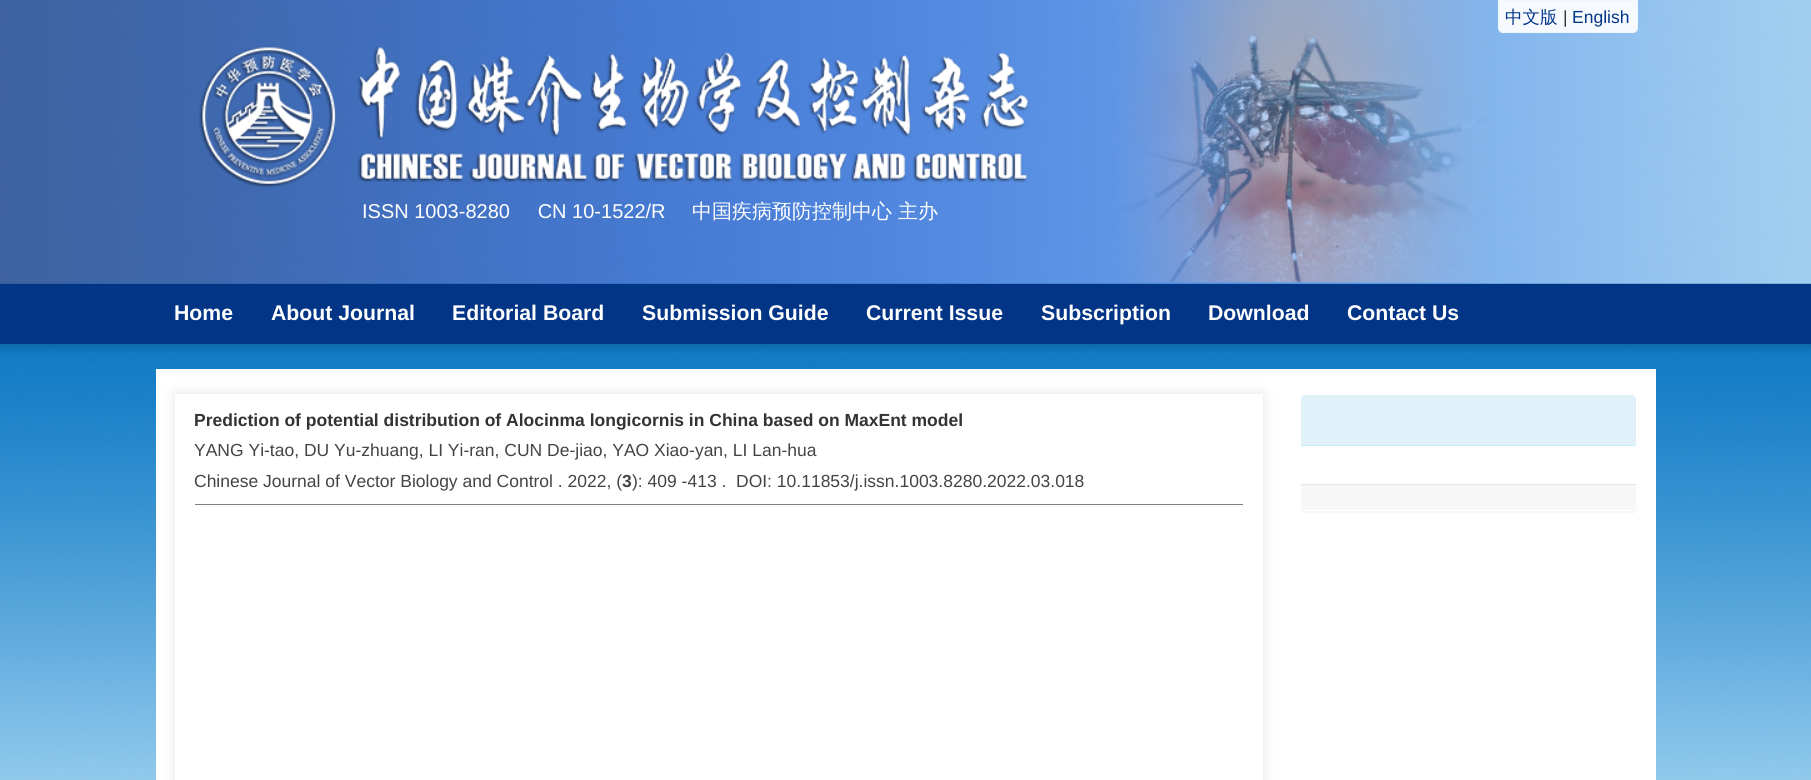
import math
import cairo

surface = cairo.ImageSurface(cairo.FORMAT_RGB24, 1811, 780)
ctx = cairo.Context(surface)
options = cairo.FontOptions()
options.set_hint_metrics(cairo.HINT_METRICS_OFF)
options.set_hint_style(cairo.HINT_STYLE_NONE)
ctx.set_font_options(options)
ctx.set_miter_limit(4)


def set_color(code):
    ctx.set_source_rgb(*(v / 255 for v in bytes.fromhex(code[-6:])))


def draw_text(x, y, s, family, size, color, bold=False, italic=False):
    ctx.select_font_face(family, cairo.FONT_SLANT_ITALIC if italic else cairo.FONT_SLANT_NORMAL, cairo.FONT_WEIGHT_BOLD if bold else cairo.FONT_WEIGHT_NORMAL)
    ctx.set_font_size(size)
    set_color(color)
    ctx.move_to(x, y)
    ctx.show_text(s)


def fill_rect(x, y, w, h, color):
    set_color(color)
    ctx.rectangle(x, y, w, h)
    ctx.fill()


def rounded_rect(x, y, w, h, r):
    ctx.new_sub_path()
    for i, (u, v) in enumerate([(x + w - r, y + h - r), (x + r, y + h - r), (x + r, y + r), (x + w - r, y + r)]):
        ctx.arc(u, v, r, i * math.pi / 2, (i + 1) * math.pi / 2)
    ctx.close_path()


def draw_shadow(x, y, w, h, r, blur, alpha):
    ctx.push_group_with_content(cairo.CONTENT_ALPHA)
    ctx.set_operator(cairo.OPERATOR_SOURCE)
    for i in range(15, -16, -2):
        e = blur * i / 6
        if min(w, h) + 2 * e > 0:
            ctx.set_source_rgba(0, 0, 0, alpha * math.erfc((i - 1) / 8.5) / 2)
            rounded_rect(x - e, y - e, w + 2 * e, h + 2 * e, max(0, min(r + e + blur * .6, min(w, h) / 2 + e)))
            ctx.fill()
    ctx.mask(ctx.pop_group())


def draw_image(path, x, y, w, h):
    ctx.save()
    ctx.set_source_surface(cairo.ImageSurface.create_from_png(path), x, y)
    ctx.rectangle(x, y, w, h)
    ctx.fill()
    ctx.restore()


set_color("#ffffff")
ctx.paint()
draw_image("assets/img1.png", 0, 283, 1811, 497)
set_color("#000000")
draw_shadow(-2, -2, 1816, 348, 0, 5, 0.2)
draw_image("assets/img2.png", 0, 0, 1811, 284)
draw_image("assets/img3.png", 1118, 0, 371, 283)
set_color("#f6faff")
ctx.new_path()
ctx.move_to(1498.5, 0.5)
ctx.line_to(1637.5, 0.5)
ctx.line_to(1637.5, 28)
ctx.curve_to(1637.5, 30.5, 1635.5, 32.5, 1633, 32.5)
ctx.line_to(1503, 32.5)
ctx.curve_to(1500.5, 32.5, 1498.5, 30.5, 1498.5, 28)
ctx.close_path()
ctx.fill_preserve()
set_color("#ecf7fd")
ctx.set_line_width(1)
ctx.stroke()
draw_text(1505, 23, "中文版", "WenQuanYi Zen Hei Medium", 17.5, "#013589")
draw_text(1563, 23, "|", "Liberation Sans", 17.5, "#333333")
draw_text(1572, 23, "English", "Liberation Sans", 17.5, "#013589")
draw_image("assets/img4.png", 199, 46, 830, 142)
draw_text(362, 218, "ISSN 1003-8280     CN 10-1522/R", "Liberation Sans", 20, "#ffffff")
draw_text(692, 218, "中国疾病预防控制中心 主办", "WenQuanYi Zen Hei Medium", 20, "#ffffff")
fill_rect(0, 284, 1811, 60, "#023586")
draw_text(174, 320, "Home", "Liberation Sans", 21.25, "#ffffff", bold=True)
draw_text(271, 320, "About Journal", "Liberation Sans", 21.25, "#ffffff", bold=True)
draw_text(452, 320, "Editorial Board", "Liberation Sans", 21.25, "#ffffff", bold=True)
draw_text(642, 320, "Submission Guide", "Liberation Sans", 21.25, "#ffffff", bold=True)
draw_text(866, 320, "Current Issue", "Liberation Sans", 21.25, "#ffffff", bold=True)
draw_text(1041, 320, "Subscription", "Liberation Sans", 21.25, "#ffffff", bold=True)
draw_text(1208, 320, "Download", "Liberation Sans", 21.25, "#ffffff", bold=True)
draw_text(1347, 320, "Contact Us", "Liberation Sans", 21.25, "#ffffff", bold=True)
fill_rect(156, 369, 1500, 411, "#ffffff")
set_color("#e3e3e3")
draw_shadow(175, 394, 1088, 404, 0, 6, 1)
fill_rect(175, 394, 1088, 386, "#ffffff")
fill_rect(195, 504, 1048, 1, "#808080")
draw_text(194, 426, "Prediction of potential distribution of Alocinma longicornis in China based on MaxEnt model", "Liberation Sans", 17.5, "#333333", bold=True)
draw_text(194, 456, "YANG Yi-tao, DU Yu-zhuang, LI Yi-ran, CUN De-jiao, YAO Xiao-yan, LI Lan-hua", "Liberation Sans", 17.5, "#444444")
draw_text(194, 487, "Chinese Journal of Vector Biology and Control . 2022, (", "Liberation Sans", 17.5, "#444444")
draw_text(622, 487, "3", "Liberation Sans", 17.5, "#444444", bold=True)
draw_text(632, 487, "): 409 -413 .", "Liberation Sans", 17.5, "#444444")
draw_text(736, 487, "DOI: 10.11853/j.issn.1003.8280.2022.03.018", "Liberation Sans", 17.5, "#444444")
set_color("#333333")
draw_shadow(1300, 395, 338, 118, 5, 0.5, 0.05)
set_color("#ffffff")
rounded_rect(1300, 394, 338, 117, 5)
ctx.fill()
set_color("#e1f1f9")
ctx.new_path()
ctx.move_to(1305, 395)
ctx.line_to(1632, 395)
ctx.curve_to(1634, 395, 1636, 397, 1636, 399)
ctx.line_to(1636, 446)
ctx.line_to(1301, 446)
ctx.line_to(1301, 399)
ctx.curve_to(1301, 397, 1303, 395, 1305, 395)
ctx.close_path()
ctx.fill()
fill_rect(1301, 445, 335, 1, "#c9edf4")
set_color("#f7f7f7")
ctx.new_path()
ctx.move_to(1301, 484)
ctx.line_to(1636, 484)
ctx.line_to(1636, 506)
ctx.curve_to(1636, 508, 1634, 510, 1632, 510)
ctx.line_to(1305, 510)
ctx.curve_to(1303, 510, 1301, 508, 1301, 506)
ctx.close_path()
ctx.fill()
fill_rect(1301, 484, 335, 1, "#e4e4e4")
surface.write_to_png("output.png")
